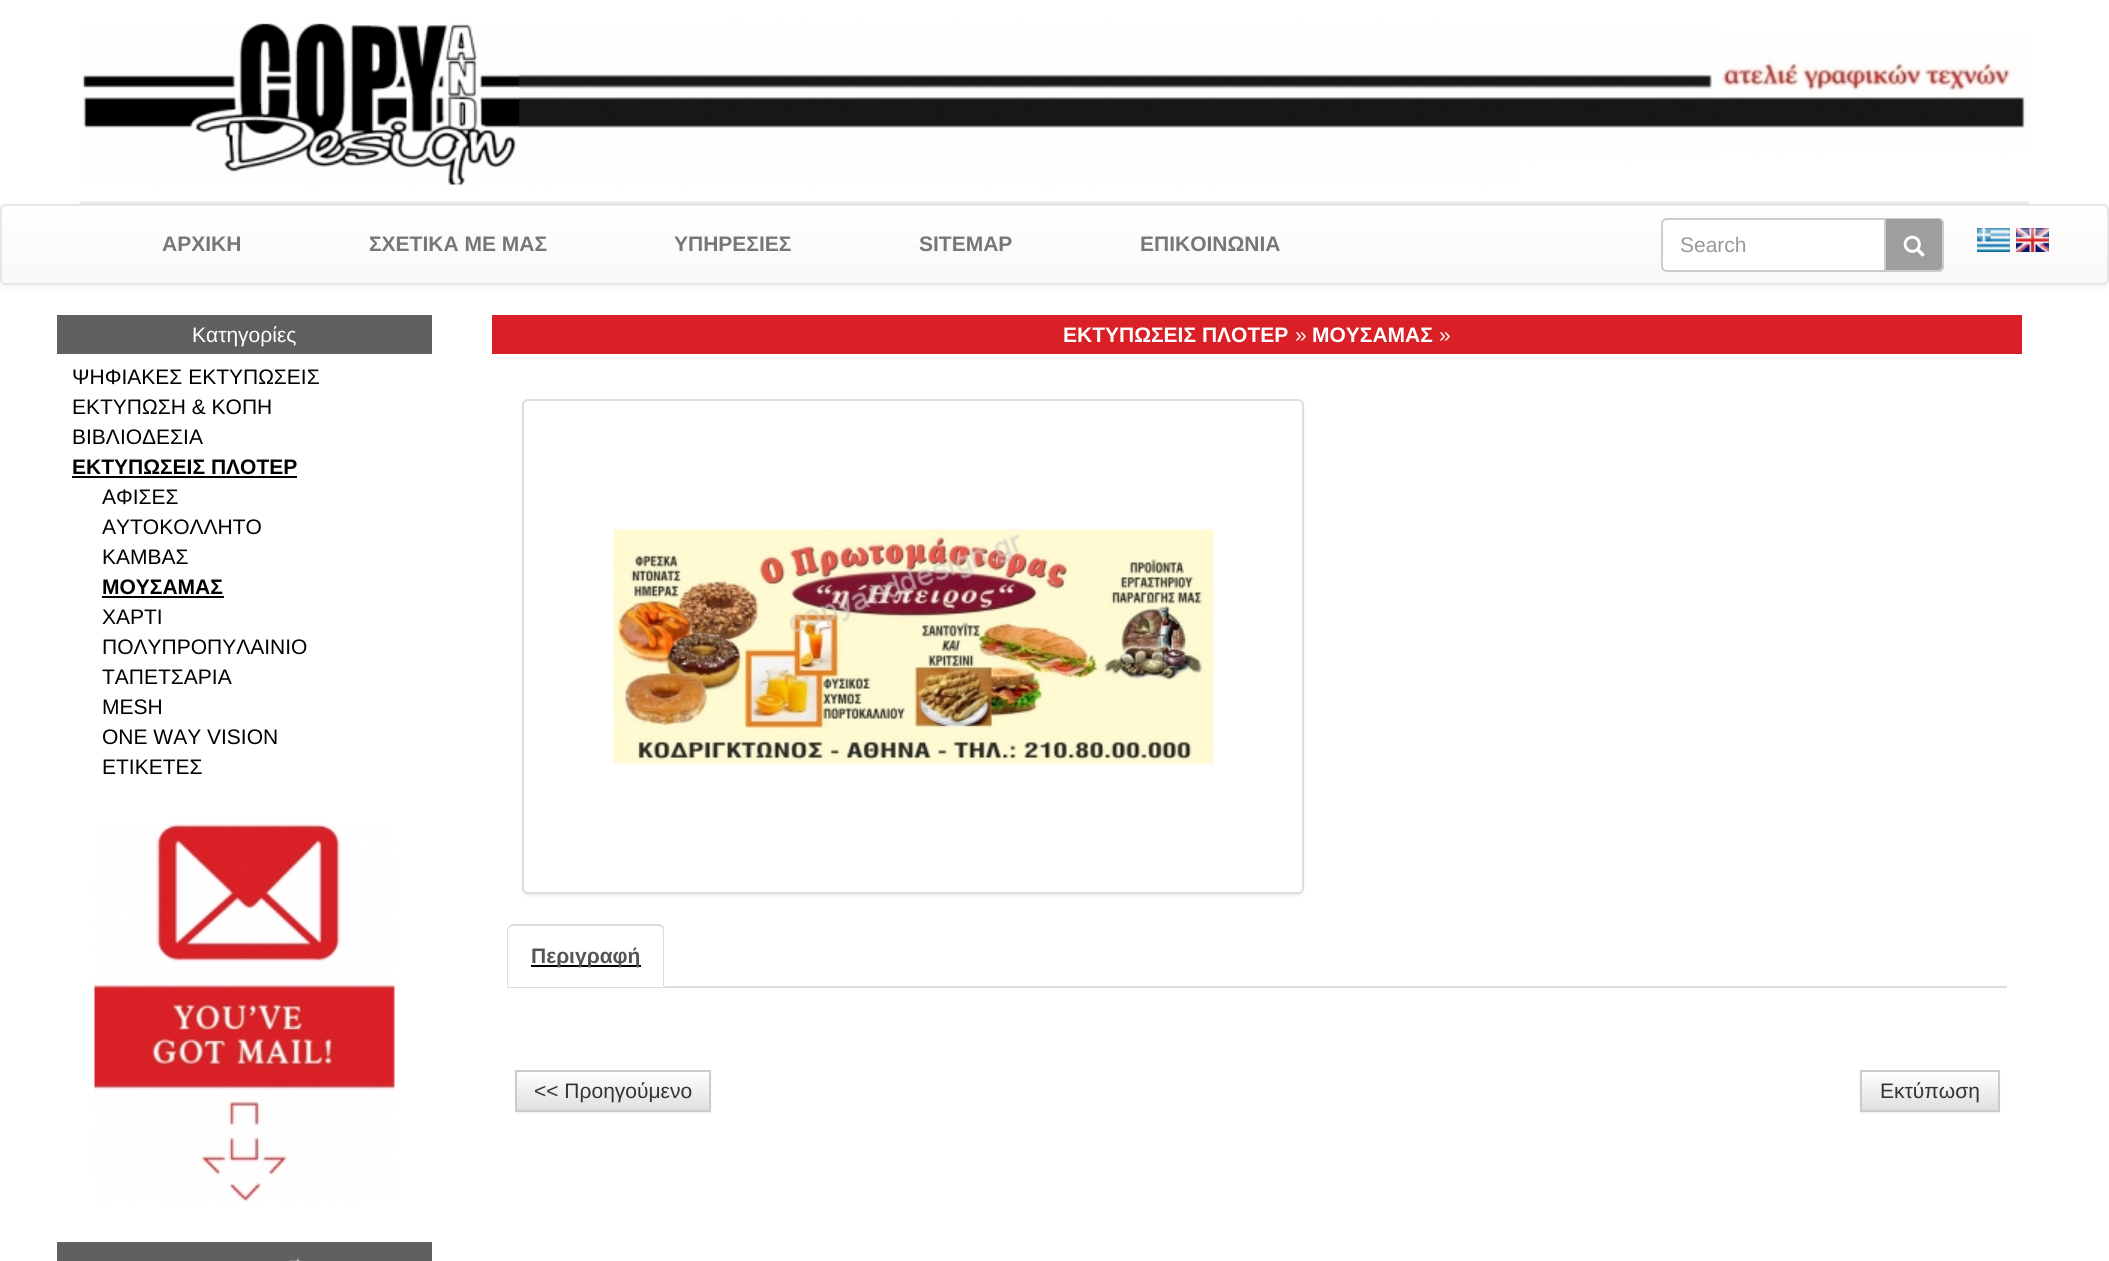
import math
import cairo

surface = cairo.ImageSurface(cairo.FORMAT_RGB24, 2109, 1261)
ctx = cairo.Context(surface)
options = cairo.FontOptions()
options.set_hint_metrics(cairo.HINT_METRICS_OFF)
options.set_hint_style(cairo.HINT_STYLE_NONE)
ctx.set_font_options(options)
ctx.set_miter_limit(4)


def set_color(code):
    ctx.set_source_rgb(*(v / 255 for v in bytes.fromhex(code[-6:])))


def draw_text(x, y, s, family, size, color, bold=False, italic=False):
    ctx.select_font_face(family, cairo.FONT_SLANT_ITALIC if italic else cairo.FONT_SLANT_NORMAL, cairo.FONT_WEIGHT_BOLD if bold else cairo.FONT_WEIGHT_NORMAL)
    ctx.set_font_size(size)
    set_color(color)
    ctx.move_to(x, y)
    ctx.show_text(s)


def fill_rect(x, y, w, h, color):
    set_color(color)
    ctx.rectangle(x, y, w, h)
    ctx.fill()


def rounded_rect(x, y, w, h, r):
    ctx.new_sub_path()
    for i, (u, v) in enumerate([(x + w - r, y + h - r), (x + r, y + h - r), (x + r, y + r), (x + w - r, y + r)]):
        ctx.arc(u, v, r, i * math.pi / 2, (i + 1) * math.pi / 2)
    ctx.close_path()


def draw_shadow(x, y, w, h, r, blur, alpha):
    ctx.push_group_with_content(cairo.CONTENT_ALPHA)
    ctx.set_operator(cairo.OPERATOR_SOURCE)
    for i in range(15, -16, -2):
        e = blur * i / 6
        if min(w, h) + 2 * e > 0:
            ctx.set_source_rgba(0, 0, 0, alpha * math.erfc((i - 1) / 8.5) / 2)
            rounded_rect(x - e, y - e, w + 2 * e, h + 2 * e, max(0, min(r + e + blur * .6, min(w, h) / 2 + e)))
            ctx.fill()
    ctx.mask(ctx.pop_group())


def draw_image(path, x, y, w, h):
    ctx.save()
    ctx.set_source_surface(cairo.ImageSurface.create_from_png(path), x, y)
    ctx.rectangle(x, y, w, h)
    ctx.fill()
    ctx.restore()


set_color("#ffffff")
ctx.paint()
draw_image("assets/img1.png", 79, 23, 1951, 181)
set_color("#000000")
draw_shadow(0, 206, 2109, 81, 6, 4, 0.07)
ctx.save()
rounded_rect(0, 204, 2109, 81, 6)
ctx.clip()
gradient = cairo.LinearGradient(1055, 205, 1055, 284)
gradient.add_color_stop_rgba(0, 1, 1, 1, 1)
gradient.add_color_stop_rgba(1, 0.973, 0.973, 0.973, 1)
ctx.set_source(gradient)
ctx.rectangle(0, 206, 2109, 78)
ctx.fill()
ctx.restore()
rounded_rect(1, 205, 2107, 79, 5)
set_color("#e7e7e7")
ctx.stroke()
draw_text(162, 251, "ΑΡΧΙΚΗ", "Liberation Sans", 21, "#777777", bold=True)
draw_text(369, 251, "ΣΧΕΤΙΚΑ ΜΕ ΜΑΣ", "Liberation Sans", 21, "#777777", bold=True)
draw_text(674, 251, "ΥΠΗΡΕΣΙΕΣ", "Liberation Sans", 21, "#777777", bold=True)
draw_text(919, 251, "SITEMAP", "Liberation Sans", 21, "#777777", bold=True)
draw_text(1140, 251, "ΕΠΙΚΟΙΝΩΝΙΑ", "Liberation Sans", 21, "#777777", bold=True)
set_color("#ffffff")
ctx.new_path()
ctx.move_to(1667, 219)
ctx.line_to(1885, 219)
ctx.line_to(1885, 271)
ctx.line_to(1667, 271)
ctx.curve_to(1664, 271, 1662, 269, 1662, 266)
ctx.line_to(1662, 224)
ctx.curve_to(1662, 221, 1664, 219, 1667, 219)
ctx.close_path()
ctx.fill_preserve()
set_color("#cccccc")
ctx.stroke()
draw_text(1680, 252, "Search", "Liberation Sans", 21, "#999999")
set_color("#9e9e9e")
ctx.new_path()
ctx.move_to(1886, 218)
ctx.line_to(1938, 218)
ctx.curve_to(1941.5, 218, 1944, 220.5, 1944, 224)
ctx.line_to(1944, 266)
ctx.curve_to(1944, 269.5, 1941.5, 272, 1938, 272)
ctx.line_to(1886, 272)
ctx.close_path()
ctx.fill()
set_color("#cccccc")
ctx.set_fill_rule(cairo.FILL_RULE_EVEN_ODD)
ctx.new_path()
ctx.move_to(1886, 218)
ctx.line_to(1938, 218)
ctx.curve_to(1941, 218, 1944, 220, 1944, 224)
ctx.line_to(1944, 266)
ctx.curve_to(1944, 269, 1941, 272, 1938, 272)
ctx.line_to(1886, 272)
ctx.close_path()
ctx.move_to(1886, 219)
ctx.line_to(1938, 219)
ctx.curve_to(1940, 219, 1942, 221, 1942, 224)
ctx.line_to(1942, 266)
ctx.curve_to(1942, 268, 1940, 270, 1938, 270)
ctx.line_to(1886, 270)
ctx.close_path()
ctx.fill()
draw_image("assets/img2.png", 1903, 235, 22, 22)
draw_image("assets/img3.png", 1977, 228, 33, 24)
draw_image("assets/img4.png", 2016, 228, 33, 24)
fill_rect(57, 315, 375, 39, "#606060")
draw_text(192, 342, "Κατηγορίες", "Liberation Sans", 21, "#ffffff")
draw_text(72, 384, "ΨΗΦΙΑΚΕΣ ΕΚΤΥΠΩΣΕΙΣ", "Liberation Sans", 21, "#000000")
draw_text(72, 414, "ΕΚΤΥΠΩΣΗ & ΚΟΠΗ", "Liberation Sans", 21, "#000000")
draw_text(72, 444, "ΒΙΒΛΙΟΔΕΣΙΑ", "Liberation Sans", 21, "#000000")
draw_text(72, 474, "ΕΚΤΥΠΩΣΕΙΣ ΠΛΟΤΕΡ", "Liberation Sans", 21, "#000000", bold=True)
fill_rect(72, 476, 225, 2, "#000000")
draw_text(102, 504, "ΑΦΙΣΕΣ", "Liberation Sans", 21, "#000000")
draw_text(102, 534, "ΑΥΤΟΚΟΛΛΗΤΟ", "Liberation Sans", 21, "#000000")
draw_text(102, 564, "ΚΑΜΒΑΣ", "Liberation Sans", 21, "#000000")
draw_text(102, 594, "ΜΟΥΣΑΜΑΣ", "Liberation Sans", 21, "#000000", bold=True)
fill_rect(102, 596, 122, 2, "#000000")
draw_text(102, 624, "ΧΑΡΤΙ", "Liberation Sans", 21, "#000000")
draw_text(102, 654, "ΠΟΛΥΠΡΟΠΥΛΑΙΝΙΟ", "Liberation Sans", 21, "#000000")
draw_text(102, 684, "ΤΑΠΕΤΣΑΡΙΑ", "Liberation Sans", 21, "#000000")
draw_text(102, 714, "MESH", "Liberation Sans", 21, "#000000")
draw_text(102, 744, "ONE WAY VISION", "Liberation Sans", 21, "#000000")
draw_text(102, 774, "ΕΤΙΚΕΤΕΣ", "Liberation Sans", 21, "#000000")
draw_image("assets/img5.png", 94, 823, 301, 379)
fill_rect(57, 1242, 375, 19, "#606060")
draw_image("assets/img6.png", 289, 1258, 12, 3)
fill_rect(492, 315, 1530, 39, "#d92026")
draw_text(1063, 342, "ΕΚΤΥΠΩΣΕΙΣ ΠΛΟΤΕΡ", "Liberation Sans", 21, "#ffffff", bold=True)
draw_text(1295, 342, "»", "Liberation Sans", 21, "#ffffff")
draw_text(1312, 342, "ΜΟΥΣΑΜΑΣ", "Liberation Sans", 21, "#ffffff", bold=True)
draw_text(1439, 342, "»", "Liberation Sans", 21, "#ffffff")
set_color("#000000")
draw_shadow(522, 401, 782, 495, 6, 1.5, 0.07)
set_color("#ffffff")
rounded_rect(523, 400, 780, 493, 5)
ctx.fill_preserve()
set_color("#dddddd")
ctx.stroke()
draw_image("assets/img7.png", 613, 528, 601, 238)
fill_rect(507, 986, 1500, 2, "#dddddd")
set_color("#ffffff")
ctx.new_path()
ctx.move_to(513, 924)
ctx.line_to(659, 924)
ctx.curve_to(662.5, 924, 665, 926.5, 665, 930)
ctx.line_to(665, 987)
ctx.line_to(507, 987)
ctx.line_to(507, 930)
ctx.curve_to(507, 926.5, 509.5, 924, 513, 924)
ctx.close_path()
ctx.fill()
set_color("#dddddd")
ctx.set_fill_rule(cairo.FILL_RULE_WINDING)
ctx.new_path()
ctx.move_to(513, 924)
ctx.curve_to(512, 924, 510, 925, 509, 926)
ctx.line_to(510, 927)
ctx.line_to(513, 926)
ctx.line_to(610, 926)
ctx.line_to(659, 926)
ctx.line_to(661, 927)
ctx.line_to(663, 926)
ctx.curve_to(662, 925, 660, 924, 658, 924)
ctx.close_path()
ctx.fill()
ctx.new_path()
ctx.move_to(663, 926)
ctx.curve_to(664, 927, 664, 929, 664, 930)
ctx.line_to(664, 986)
ctx.line_to(663, 986)
ctx.line_to(663, 929)
ctx.line_to(661, 927)
ctx.close_path()
ctx.fill()
ctx.new_path()
ctx.move_to(507, 987)
ctx.line_to(508, 986)
ctx.line_to(508, 930)
ctx.line_to(510, 927)
ctx.line_to(509, 926)
ctx.curve_to(508, 927, 507, 928, 507, 930)
ctx.close_path()
ctx.fill()
fill_rect(531, 965, 110, 2, "#000000")
draw_text(531, 963, "Περιγραφή", "Liberation Sans", 21, "#555555", bold=True)
set_color("#000000")
draw_shadow(515, 1071, 196, 42, 0, 1, 0.07)
gradient = cairo.LinearGradient(613, 1071, 613, 1110)
gradient.add_color_stop_rgba(0, 1, 1, 1, 1)
gradient.add_color_stop_rgba(1, 0.878, 0.878, 0.878, 1)
ctx.set_source(gradient)
ctx.rectangle(517, 1072, 192, 38)
ctx.fill()
ctx.rectangle(516, 1071, 194, 40)
set_color("#cccccc")
ctx.stroke()
draw_text(534, 1098, "<< Προηγούμενο", "Liberation Sans", 21, "#333333")
set_color("#000000")
draw_shadow(1860, 1071, 140, 42, 0, 1, 0.07)
gradient = cairo.LinearGradient(1930, 1071, 1930, 1110)
gradient.add_color_stop_rgba(0, 1, 1, 1, 1)
gradient.add_color_stop_rgba(1, 0.878, 0.878, 0.878, 1)
ctx.set_source(gradient)
ctx.rectangle(1862, 1072, 136, 38)
ctx.fill()
ctx.rectangle(1861, 1071, 138, 40)
set_color("#cccccc")
ctx.stroke()
draw_text(1880, 1098, "Εκτύπωση", "Liberation Sans", 21, "#333333")
surface.write_to_png("output.png")
